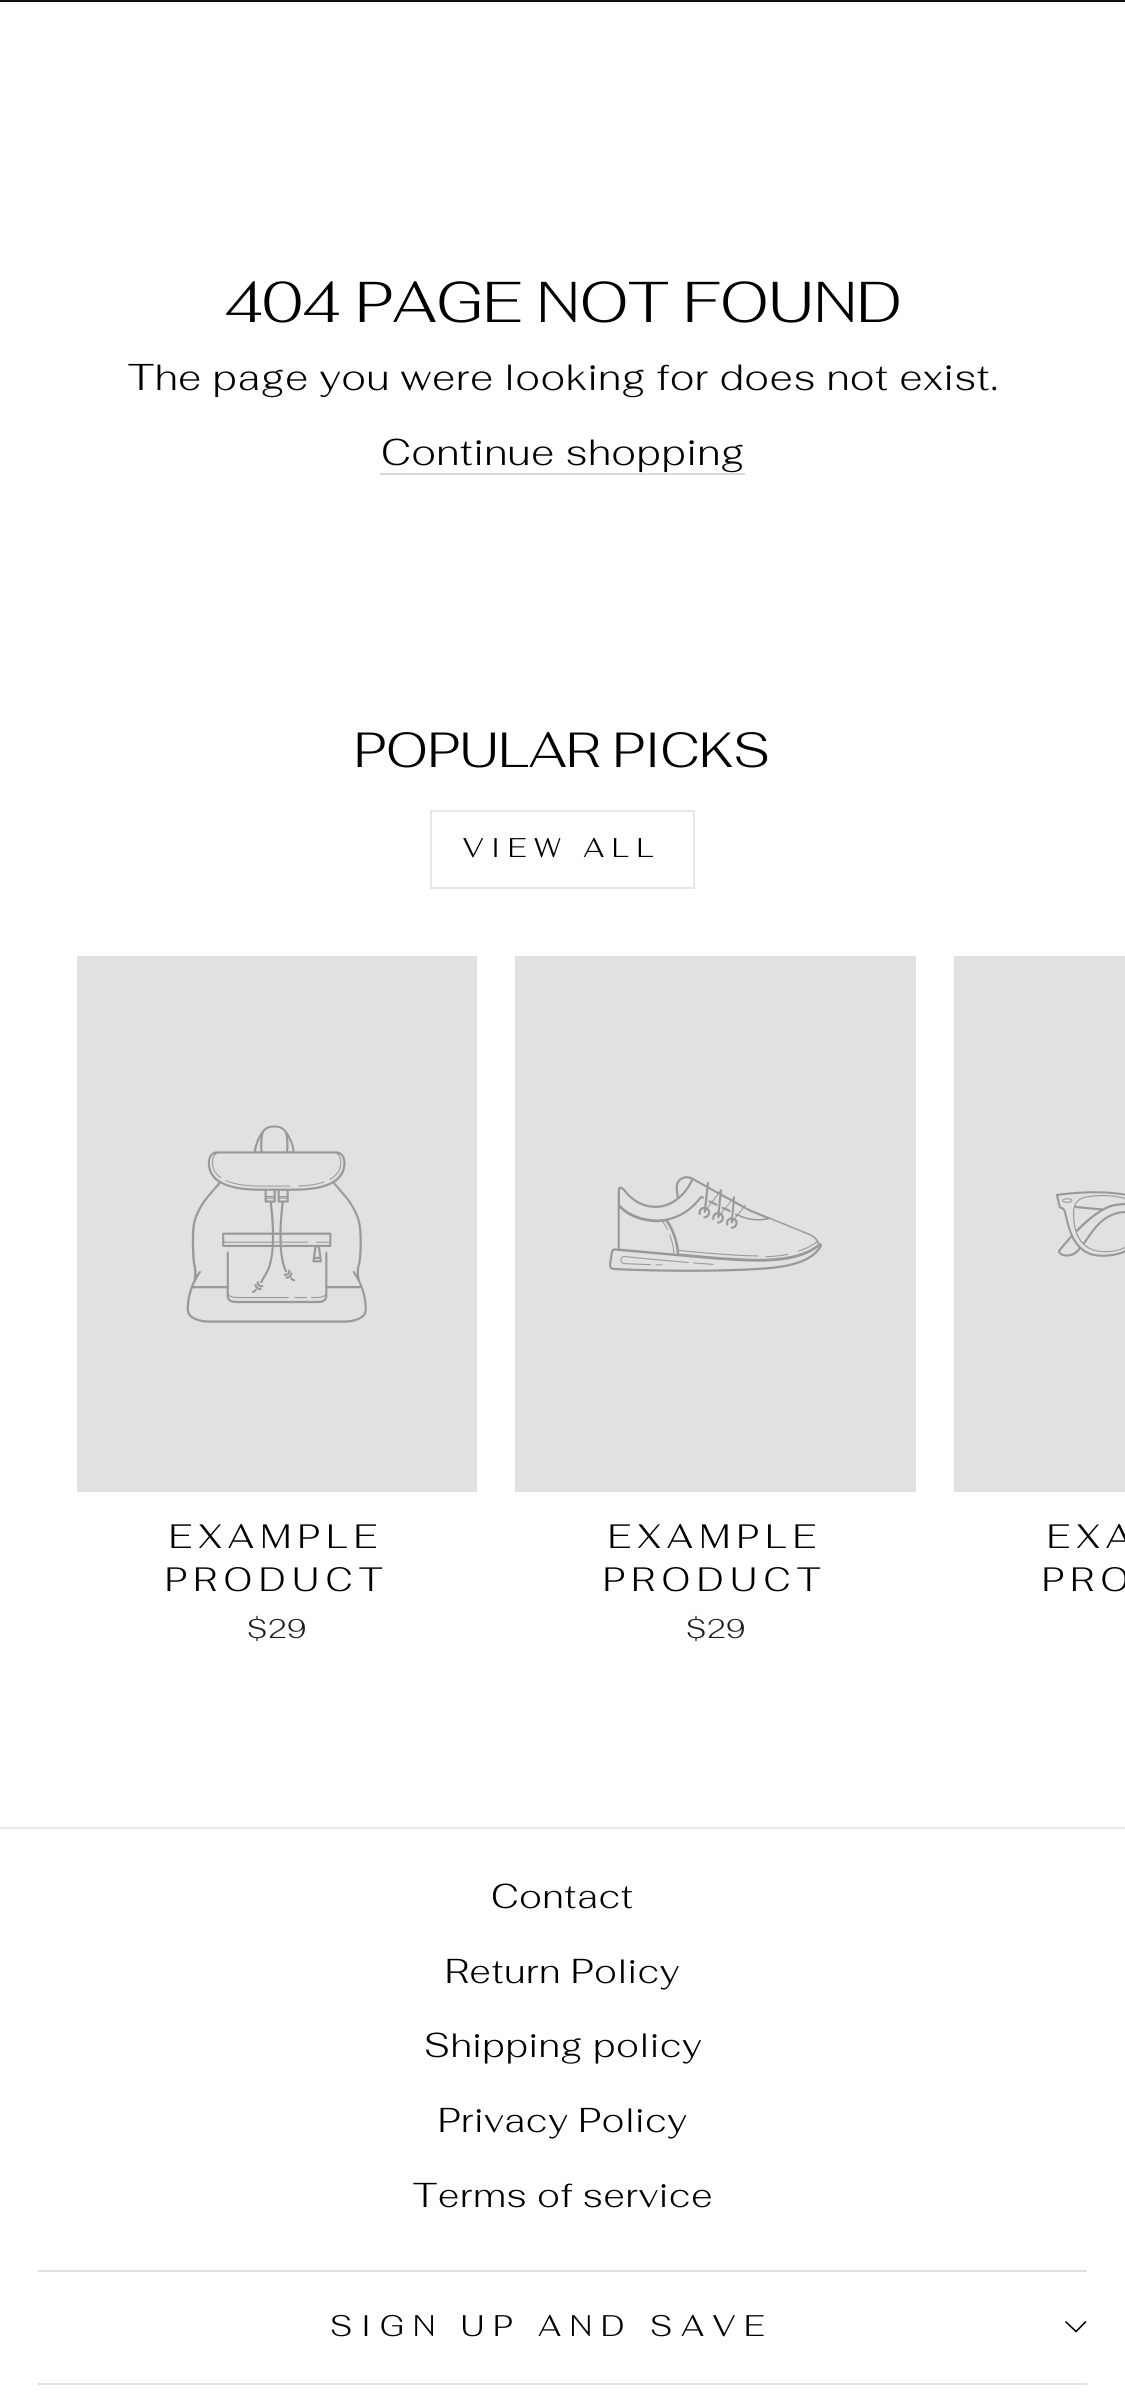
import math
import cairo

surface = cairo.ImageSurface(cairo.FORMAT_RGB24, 1125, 2400)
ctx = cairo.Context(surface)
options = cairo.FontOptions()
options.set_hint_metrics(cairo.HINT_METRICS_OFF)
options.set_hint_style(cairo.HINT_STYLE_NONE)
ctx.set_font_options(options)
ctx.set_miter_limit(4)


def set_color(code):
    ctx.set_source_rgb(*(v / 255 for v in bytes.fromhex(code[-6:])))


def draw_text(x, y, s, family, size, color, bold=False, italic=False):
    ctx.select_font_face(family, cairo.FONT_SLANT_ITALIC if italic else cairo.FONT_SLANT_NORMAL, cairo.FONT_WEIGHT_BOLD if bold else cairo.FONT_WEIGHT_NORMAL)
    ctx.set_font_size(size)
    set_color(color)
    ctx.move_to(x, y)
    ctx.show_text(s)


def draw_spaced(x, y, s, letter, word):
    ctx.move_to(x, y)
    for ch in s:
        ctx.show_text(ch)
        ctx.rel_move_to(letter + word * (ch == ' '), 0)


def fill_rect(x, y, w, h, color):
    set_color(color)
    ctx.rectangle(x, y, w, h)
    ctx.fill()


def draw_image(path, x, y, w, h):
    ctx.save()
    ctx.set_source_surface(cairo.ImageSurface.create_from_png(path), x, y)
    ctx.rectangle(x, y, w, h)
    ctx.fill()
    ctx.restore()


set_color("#ffffff")
ctx.paint()
fill_rect(0, 0, 1125, 2, "#0f0f0f")
draw_text(224, 322, "404 PAGE NOT FOUND", "Fahkwang Light", 57.4, "#000000")
ctx.set_font_size(37.25)
draw_spaced(128, 390, "The page you were looking for does not exist.", 0.95, 0)
draw_spaced(381, 465, "Continue shopping", 0.95, 0)
fill_rect(380, 473, 365, 2, "#d9d9d9")
draw_text(354, 767, "POPULAR PICKS", "Fahkwang Light", 49.25, "#000000")
ctx.rectangle(431, 811, 263, 77)
set_color("#e8e8e1")
ctx.stroke()
ctx.set_font_size(27)
set_color("#000000")
draw_spaced(463, 857, "VIEW ALL", 8, 0)
fill_rect(77, 956, 400, 536, "#e1e1e1")
draw_image("assets/img1.png", 186, 1125, 181, 198)
ctx.set_font_size(33.75)
set_color("#000000")
draw_spaced(169, 1548, "EXAMPLE", 6.75, 0)
draw_spaced(165, 1591, "PRODUCT", 6.75, 0)
ctx.set_font_size(27)
set_color("#1c1d1d")
draw_spaced(247, 1638, "$29", 0.95, 0)
fill_rect(515, 956, 401, 536, "#e1e1e1")
draw_image("assets/img2.png", 609, 1176, 213, 96)
ctx.set_font_size(33.75)
set_color("#000000")
draw_spaced(608, 1548, "EXAMPLE", 6.75, 0)
draw_spaced(603, 1591, "PRODUCT", 6.75, 0)
ctx.set_font_size(27)
set_color("#1c1d1d")
draw_spaced(686, 1638, "$29", 0.95, 0)
fill_rect(954, 956, 171, 536, "#e1e1e1")
draw_image("assets/img3.png", 1056, 1191, 69, 66)
ctx.set_font_size(33.75)
set_color("#000000")
draw_spaced(1047, 1548, "EXA", 6.75, 0)
draw_spaced(1042, 1591, "PRO", 6.75, 0)
fill_rect(0, 1827, 1125, 2, "#e8e8e1")
ctx.set_font_size(34.5)
set_color("#000000")
draw_spaced(491, 1908, "Contact", 0.95, 0)
draw_spaced(445, 1983, "Return Policy", 0.95, 0)
draw_spaced(424, 2057, "Shipping policy", 0.95, 0)
draw_spaced(438, 2132, "Privacy Policy", 0.95, 0)
draw_spaced(413, 2207, "Terms of service", 0.95, 0)
fill_rect(38, 2270, 1049, 2, "#e0e0e0")
ctx.set_font_size(29.75)
set_color("#000000")
draw_spaced(330, 2336, "SIGN UP AND SAVE", 9, 0)
ctx.new_path()
ctx.move_to(1065.5, 2321.5)
ctx.line_to(1076, 2331.5)
ctx.line_to(1086, 2321.5)
ctx.set_line_width(1.6)
ctx.stroke()
fill_rect(38, 2383, 1049, 2, "#e0e0e0")
surface.write_to_png("output.png")
